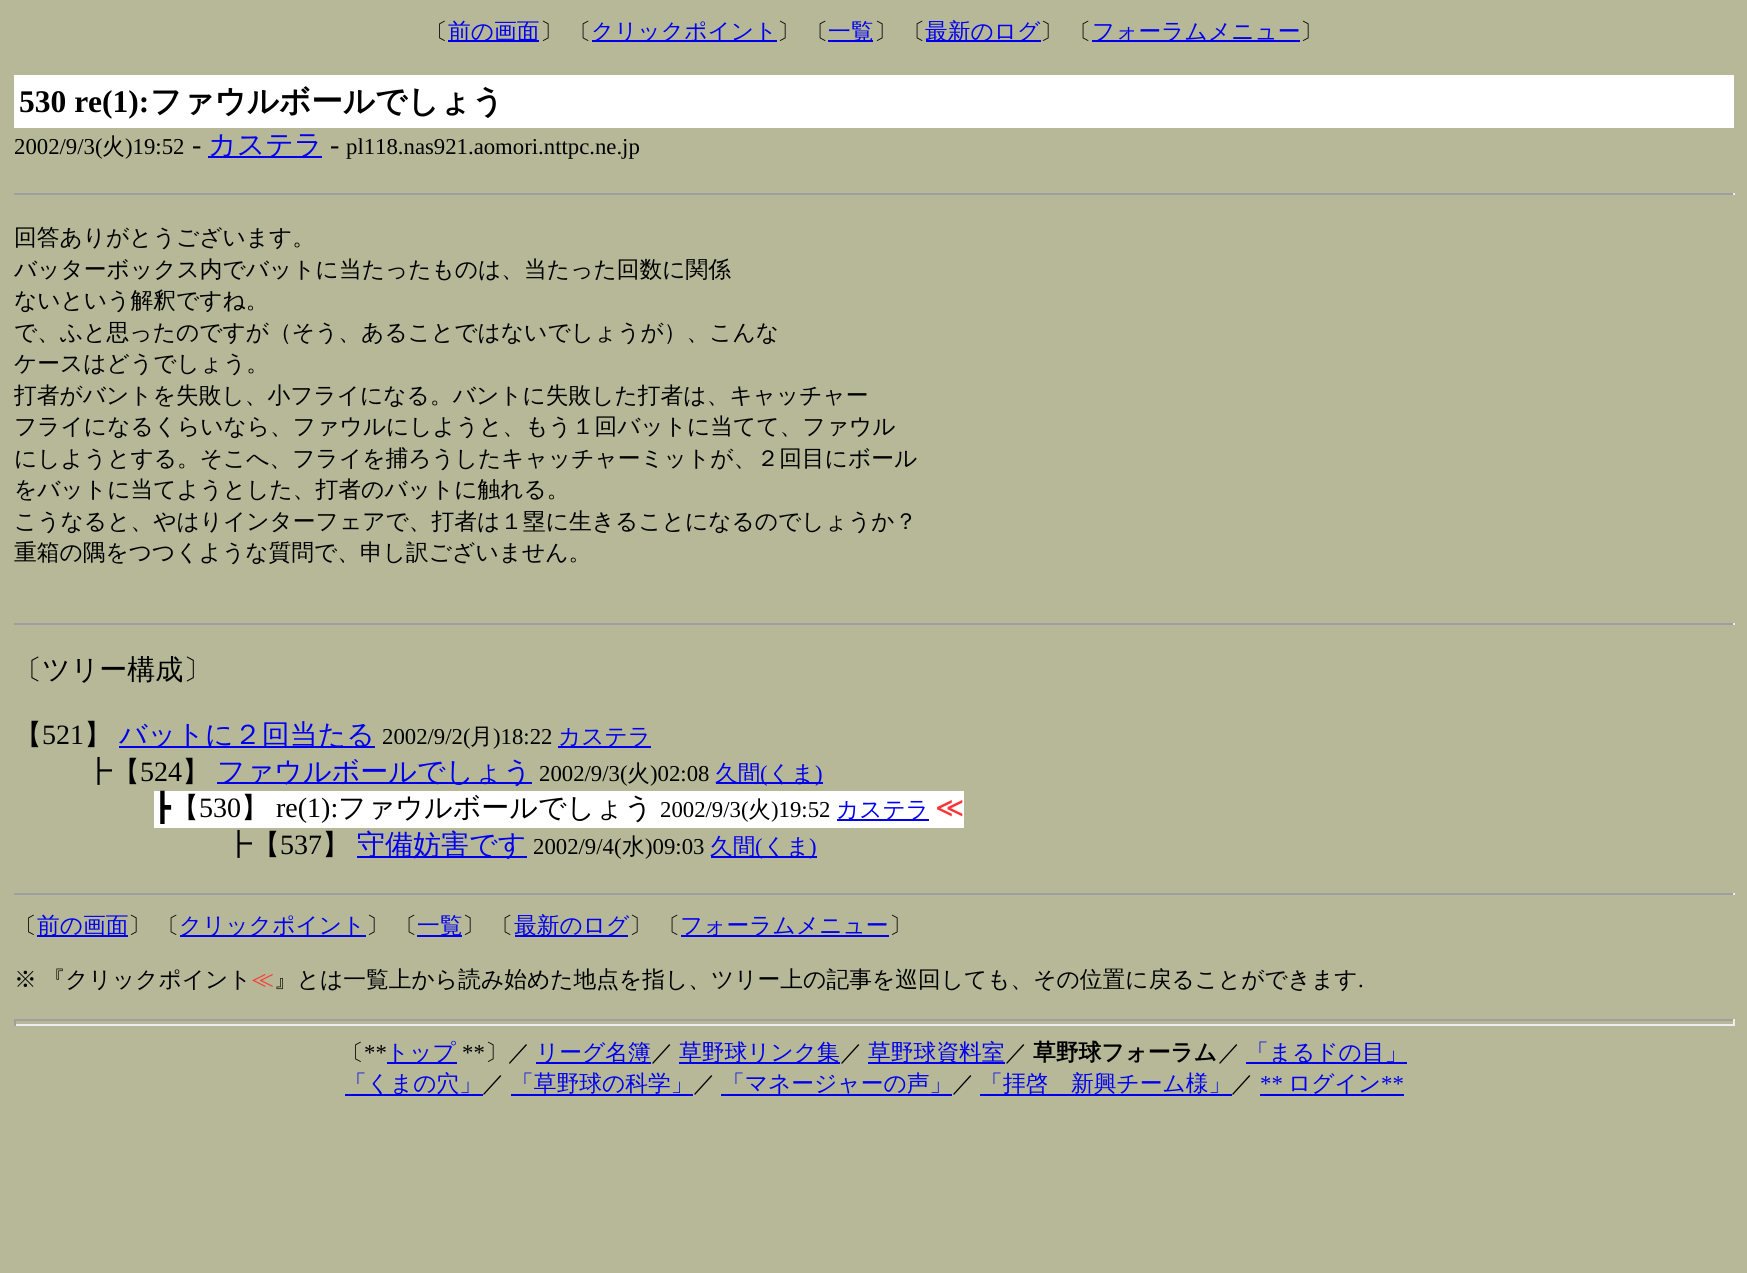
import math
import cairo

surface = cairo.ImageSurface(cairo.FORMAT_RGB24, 1747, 1273)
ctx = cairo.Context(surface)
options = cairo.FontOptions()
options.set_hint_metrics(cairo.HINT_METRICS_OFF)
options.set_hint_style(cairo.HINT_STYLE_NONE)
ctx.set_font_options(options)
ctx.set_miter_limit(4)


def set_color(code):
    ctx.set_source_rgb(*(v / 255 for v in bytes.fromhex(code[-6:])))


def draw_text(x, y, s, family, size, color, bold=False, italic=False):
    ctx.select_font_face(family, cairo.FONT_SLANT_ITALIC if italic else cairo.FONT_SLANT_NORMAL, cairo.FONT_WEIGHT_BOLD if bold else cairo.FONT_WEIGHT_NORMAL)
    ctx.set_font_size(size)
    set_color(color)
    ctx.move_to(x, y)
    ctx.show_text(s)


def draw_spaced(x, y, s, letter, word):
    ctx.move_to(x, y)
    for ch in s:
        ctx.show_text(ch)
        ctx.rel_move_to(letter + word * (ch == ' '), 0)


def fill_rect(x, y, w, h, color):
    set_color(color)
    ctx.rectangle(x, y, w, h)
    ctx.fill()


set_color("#b6b898")
ctx.paint()
draw_text(425, 39, "〔", "WenQuanYi Zen Hei Medium", 22.75, "#000000")
fill_rect(448, 40, 91, 2, "#0000ee")
draw_text(448, 39, "前の画面", "WenQuanYi Zen Hei Medium", 22.75, "#0000ee")
set_color("#000000")
draw_spaced(540, 39, "〕 〔", 0, -1)
fill_rect(592, 40, 185, 2, "#0000ee")
draw_text(591, 39, "クリックポイント", "WenQuanYi Zen Hei Medium", 22.75, "#0000ee")
set_color("#000000")
draw_spaced(777, 39, "〕 〔", 0, -1)
fill_rect(828, 40, 45, 2, "#0000ee")
draw_text(828, 39, "一覧", "WenQuanYi Zen Hei Medium", 22.75, "#0000ee")
set_color("#000000")
draw_spaced(874, 39, "〕 〔", 0, -1)
fill_rect(926, 40, 115, 2, "#0000ee")
draw_text(925, 39, "最新のログ", "WenQuanYi Zen Hei Medium", 22.75, "#0000ee")
set_color("#000000")
draw_spaced(1040, 39, "〕 〔", 0, -1)
fill_rect(1092, 40, 208, 2, "#0000ee")
draw_text(1092, 39, "フォーラムメニュー", "WenQuanYi Zen Hei Medium", 22.75, "#0000ee")
draw_text(1300, 39, "〕", "WenQuanYi Zen Hei Medium", 22.75, "#000000")
fill_rect(14, 75, 1720, 53, "#ffffff")
draw_text(19, 112, "530 re(1):", "Liberation Serif", 31.5, "#000000", bold=True)
draw_text(150, 112, "ファウルボールでしょう", "WenQuanYi Zen Hei", 31.5, "#000000", bold=True)
draw_text(14, 154, "2002/9/3(", "Liberation Serif", 22.75, "#000000")
draw_text(102, 154, "火", "WenQuanYi Zen Hei Medium", 22.75, "#000000")
draw_text(125, 154, ")19:52", "Liberation Serif", 22.75, "#000000")
draw_text(192, 154, "-", "Liberation Serif", 28, "#000000")
fill_rect(208, 156, 114, 2, "#0000ee")
draw_text(208, 154, "カステラ", "WenQuanYi Zen Hei Medium", 28, "#0000ee")
draw_text(330, 154, "-", "Liberation Serif", 28, "#000000")
draw_text(346, 154, "pl118.nas921.aomori.nttpc.ne.jp", "Liberation Serif", 22.75, "#000000")
fill_rect(14, 193, 1720, 2, "#9f9f9f")
fill_rect(1733, 193, 2, 2, "#eeeeee")
draw_text(14, 245, "回答ありがとうございます。", "WenQuanYi Zen Hei Medium", 22.75, "#000000")
draw_text(14, 277, "バッターボックス内でバットに当たったものは、当たった回数に関係", "WenQuanYi Zen Hei Medium", 22.75, "#000000")
draw_text(14, 308, "ないという解釈ですね。", "WenQuanYi Zen Hei Medium", 22.75, "#000000")
draw_text(14, 340, "で、ふと思ったのですが（そう、あることではないでしょうが）、こんな", "WenQuanYi Zen Hei Medium", 22.75, "#000000")
draw_text(14, 371, "ケースはどうでしょう。", "WenQuanYi Zen Hei Medium", 22.75, "#000000")
draw_text(14, 403, "打者がバントを失敗し、小フライになる。バントに失敗した打者は、キャッチャー", "WenQuanYi Zen Hei Medium", 22.75, "#000000")
draw_text(14, 434, "フライになるくらいなら、ファウルにしようと、もう１回バットに当てて、ファウル", "WenQuanYi Zen Hei Medium", 22.75, "#000000")
draw_text(14, 466, "にしようとする。そこへ、フライを捕ろうしたキャッチャーミットが、２回目にボール", "WenQuanYi Zen Hei Medium", 22.75, "#000000")
draw_text(14, 497, "をバットに当てようとした、打者のバットに触れる。", "WenQuanYi Zen Hei Medium", 22.75, "#000000")
draw_text(14, 529, "こうなると、やはりインターフェアで、打者は１塁に生きることになるのでしょうか？", "WenQuanYi Zen Hei Medium", 22.75, "#000000")
draw_text(14, 560, "重箱の隅をつつくような質問で、申し訳ございません。", "WenQuanYi Zen Hei Medium", 22.75, "#000000")
fill_rect(14, 623, 1720, 2, "#9f9f9f")
fill_rect(1733, 623, 2, 2, "#eeeeee")
draw_text(14, 679, "〔ツリー構成〕", "WenQuanYi Zen Hei Medium", 28, "#000000")
draw_text(14, 744, "【", "WenQuanYi Zen Hei Medium", 28, "#000000")
draw_text(42, 744, "521", "Liberation Serif", 28, "#000000")
draw_text(84, 744, "】", "WenQuanYi Zen Hei Medium", 28, "#000000")
fill_rect(119, 746, 256, 2, "#0000ee")
draw_text(119, 744, "バットに２回当たる", "WenQuanYi Zen Hei Medium", 28, "#0000ee")
draw_text(382, 744, "2002/9/2(", "Liberation Serif", 22.75, "#000000")
draw_text(470, 744, "月", "WenQuanYi Zen Hei Medium", 22.75, "#000000")
draw_text(493, 744, ")18:22", "Liberation Serif", 22.75, "#000000")
fill_rect(558, 746, 93, 2, "#0000ee")
draw_text(558, 744, "カステラ", "WenQuanYi Zen Hei Medium", 22.75, "#0000ee")
draw_text(84, 781, "┣【", "WenQuanYi Zen Hei Medium", 28, "#000000")
draw_text(140, 781, "524", "Liberation Serif", 28, "#000000")
draw_text(182, 781, "】", "WenQuanYi Zen Hei Medium", 28, "#000000")
fill_rect(217, 782, 315, 2, "#0000ee")
draw_text(217, 781, "ファウルボールでしょう", "WenQuanYi Zen Hei Medium", 28, "#0000ee")
draw_text(539, 781, "2002/9/3(", "Liberation Serif", 22.75, "#000000")
draw_text(627, 781, "火", "WenQuanYi Zen Hei Medium", 22.75, "#000000")
draw_text(650, 781, ")02:08", "Liberation Serif", 22.75, "#000000")
fill_rect(716, 782, 107, 2, "#0000ee")
draw_text(715, 781, "久間", "WenQuanYi Zen Hei Medium", 22.75, "#0000ee")
draw_text(760, 781, "(", "Liberation Serif", 22.75, "#0000ee")
draw_text(768, 781, "くま", "WenQuanYi Zen Hei Medium", 22.75, "#0000ee")
draw_text(815, 781, ")", "Liberation Serif", 22.75, "#0000ee")
fill_rect(154, 791, 810, 37, "#ffffff")
draw_text(154, 817, "┣", "DejaVu Sans", 28, "#000000")
draw_text(171, 817, "【", "WenQuanYi Zen Hei Medium", 28, "#000000")
draw_text(199, 817, "530", "Liberation Serif", 28, "#000000")
draw_text(241, 817, "】", "WenQuanYi Zen Hei Medium", 28, "#000000")
draw_text(276, 817, "re(1):", "Liberation Serif", 28, "#000000")
draw_text(338, 817, "ファウルボールでしょう", "WenQuanYi Zen Hei Medium", 28, "#000000")
draw_text(660, 817, "2002/9/3(", "Liberation Serif", 22.75, "#000000")
draw_text(748, 817, "火", "WenQuanYi Zen Hei Medium", 22.75, "#000000")
draw_text(771, 817, ")19:52", "Liberation Serif", 22.75, "#000000")
fill_rect(837, 819, 92, 2, "#0000ee")
draw_text(836, 817, "カステラ", "WenQuanYi Zen Hei Medium", 22.75, "#0000ee")
draw_text(935, 817, "≪", "DejaVu Sans", 28, "#ff3333")
draw_text(224, 854, "┣【", "WenQuanYi Zen Hei Medium", 28, "#000000")
draw_text(280, 854, "537", "Liberation Serif", 28, "#000000")
draw_text(322, 854, "】", "WenQuanYi Zen Hei Medium", 28, "#000000")
fill_rect(357, 856, 170, 2, "#0000ee")
draw_text(357, 854, "守備妨害です", "WenQuanYi Zen Hei Medium", 28, "#0000ee")
draw_text(533, 854, "2002/9/4(", "Liberation Serif", 22.75, "#000000")
draw_text(622, 854, "水", "WenQuanYi Zen Hei Medium", 22.75, "#000000")
draw_text(645, 854, ")09:03", "Liberation Serif", 22.75, "#000000")
fill_rect(711, 856, 106, 2, "#0000ee")
draw_text(710, 854, "久間", "WenQuanYi Zen Hei Medium", 22.75, "#0000ee")
draw_text(755, 854, "(", "Liberation Serif", 22.75, "#0000ee")
draw_text(763, 854, "くま", "WenQuanYi Zen Hei Medium", 22.75, "#0000ee")
draw_text(809, 854, ")", "Liberation Serif", 22.75, "#0000ee")
fill_rect(14, 893, 1720, 2, "#9f9f9f")
fill_rect(1733, 893, 2, 2, "#eeeeee")
draw_text(14, 933, "〔", "WenQuanYi Zen Hei Medium", 22.75, "#000000")
fill_rect(37, 935, 91, 2, "#0000ee")
draw_text(37, 933, "前の画面", "WenQuanYi Zen Hei Medium", 22.75, "#0000ee")
set_color("#000000")
draw_spaced(128, 933, "〕 〔", 0, -1)
fill_rect(180, 935, 186, 2, "#0000ee")
draw_text(179, 933, "クリックポイント", "WenQuanYi Zen Hei Medium", 22.75, "#0000ee")
set_color("#000000")
draw_spaced(366, 933, "〕 〔", 0, -1)
fill_rect(417, 935, 45, 2, "#0000ee")
draw_text(417, 933, "一覧", "WenQuanYi Zen Hei Medium", 22.75, "#0000ee")
set_color("#000000")
draw_spaced(462, 933, "〕 〔", 0, -1)
fill_rect(515, 935, 113, 2, "#0000ee")
draw_text(514, 933, "最新のログ", "WenQuanYi Zen Hei Medium", 22.75, "#0000ee")
set_color("#000000")
draw_spaced(629, 933, "〕 〔", 0, -1)
fill_rect(681, 935, 208, 2, "#0000ee")
draw_text(680, 933, "フォーラムメニュー", "WenQuanYi Zen Hei Medium", 22.75, "#0000ee")
draw_text(889, 933, "〕", "WenQuanYi Zen Hei Medium", 22.75, "#000000")
draw_spaced(14, 987, "※ 『クリックポイント", 0, -1)
draw_text(251, 987, "≪", "WenQuanYi Zen Hei Medium", 22.75, "#ff3333")
draw_text(274, 987, "』とは一覧上から読み始めた地点を指し、ツリー上の記事を巡回しても、その位置に戻ることができます", "WenQuanYi Zen Hei Medium", 22.75, "#000000")
draw_text(1358, 987, ".", "Liberation Serif", 22.75, "#000000")
fill_rect(14, 1019, 1720, 2, "#9f9f9f")
fill_rect(1733, 1019, 2, 7, "#eeeeee")
fill_rect(14, 1024, 1720, 2, "#eeeeee")
fill_rect(14, 1019, 2, 7, "#9f9f9f")
draw_text(341, 1060, "〔", "WenQuanYi Zen Hei Medium", 22.75, "#000000")
draw_text(364, 1060, "**", "Liberation Serif", 22.75, "#000000")
fill_rect(387, 1062, 70, 2, "#0000ee")
draw_text(386, 1060, "トップ", "WenQuanYi Zen Hei Medium", 22.75, "#0000ee")
draw_text(462, 1060, "**", "Liberation Serif", 22.75, "#000000")
draw_text(485, 1060, "〕／", "WenQuanYi Zen Hei Medium", 22.75, "#000000")
fill_rect(536, 1062, 115, 2, "#0000ee")
draw_text(536, 1060, "リーグ名簿", "WenQuanYi Zen Hei Medium", 22.75, "#0000ee")
draw_text(651, 1060, "／", "WenQuanYi Zen Hei Medium", 22.75, "#000000")
fill_rect(679, 1062, 161, 2, "#0000ee")
draw_text(679, 1060, "草野球リンク集", "WenQuanYi Zen Hei Medium", 22.75, "#0000ee")
draw_text(840, 1060, "／", "WenQuanYi Zen Hei Medium", 22.75, "#000000")
fill_rect(868, 1062, 137, 2, "#0000ee")
draw_text(868, 1060, "草野球資料室", "WenQuanYi Zen Hei Medium", 22.75, "#0000ee")
draw_text(1005, 1060, "／", "WenQuanYi Zen Hei Medium", 22.75, "#000000")
draw_text(1033, 1060, "草野球フォーラム", "WenQuanYi Zen Hei", 22.75, "#000000", bold=True)
draw_text(1218, 1060, "／", "WenQuanYi Zen Hei Medium", 22.75, "#000000")
fill_rect(1246, 1062, 161, 2, "#0000ee")
draw_text(1246, 1060, "「まるドの目」", "WenQuanYi Zen Hei Medium", 22.75, "#0000ee")
fill_rect(345, 1094, 138, 2, "#0000ee")
draw_text(344, 1091, "「くまの穴」", "WenQuanYi Zen Hei Medium", 22.75, "#0000ee")
draw_text(482, 1091, "／", "WenQuanYi Zen Hei Medium", 22.75, "#000000")
draw_text(511, 1091, "「草野球の科学」", "WenQuanYi Zen Hei Medium", 22.75, "#0000ee")
draw_text(693, 1091, "／", "WenQuanYi Zen Hei Medium", 22.75, "#000000")
fill_rect(511, 1094, 182, 2, "#0000ee")
fill_rect(721, 1094, 231, 2, "#0000ee")
draw_text(722, 1091, "「マネージャーの声」", "WenQuanYi Zen Hei Medium", 22.75, "#0000ee")
draw_text(952, 1091, "／", "WenQuanYi Zen Hei Medium", 22.75, "#000000")
fill_rect(980, 1094, 252, 2, "#0000ee")
draw_text(980, 1091, "「拝啓　新興チーム様」", "WenQuanYi Zen Hei Medium", 22.75, "#0000ee")
draw_text(1231, 1091, "／", "WenQuanYi Zen Hei Medium", 22.75, "#000000")
draw_text(1260, 1091, "**", "Liberation Serif", 22.75, "#0000ee")
draw_text(1288, 1091, "ログイン", "WenQuanYi Zen Hei Medium", 22.75, "#0000ee")
fill_rect(1260, 1094, 144, 2, "#0000ee")
draw_text(1381, 1091, "**", "Liberation Serif", 22.75, "#0000ee")
surface.write_to_png("output.png")
